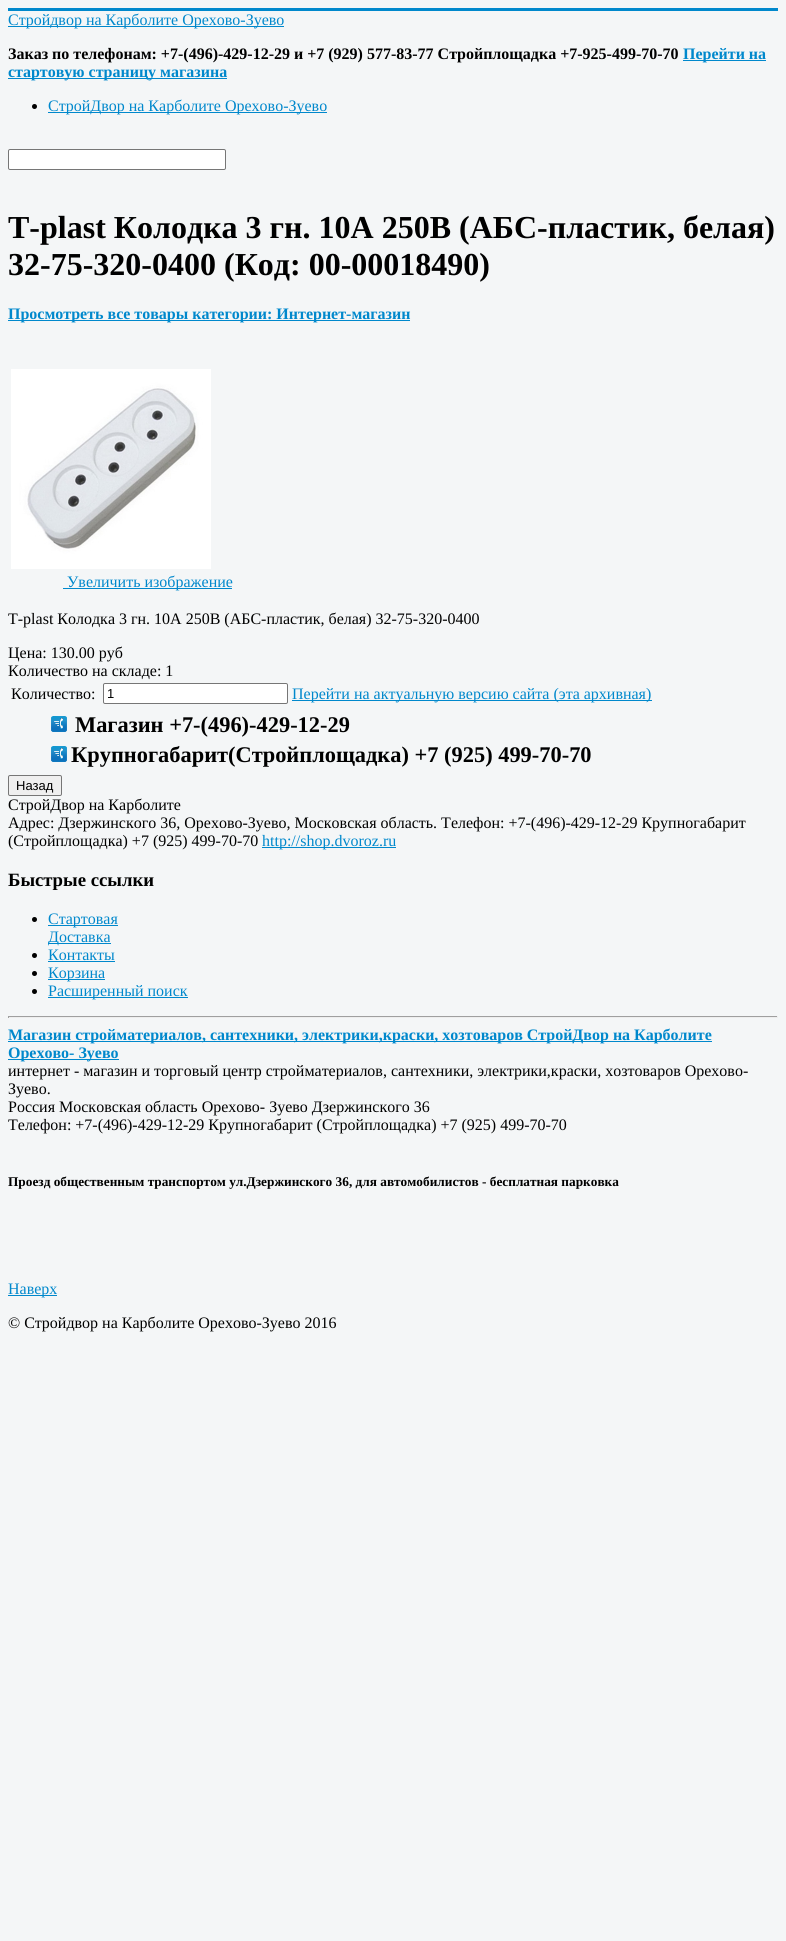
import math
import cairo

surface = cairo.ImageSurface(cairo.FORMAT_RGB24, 786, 1941)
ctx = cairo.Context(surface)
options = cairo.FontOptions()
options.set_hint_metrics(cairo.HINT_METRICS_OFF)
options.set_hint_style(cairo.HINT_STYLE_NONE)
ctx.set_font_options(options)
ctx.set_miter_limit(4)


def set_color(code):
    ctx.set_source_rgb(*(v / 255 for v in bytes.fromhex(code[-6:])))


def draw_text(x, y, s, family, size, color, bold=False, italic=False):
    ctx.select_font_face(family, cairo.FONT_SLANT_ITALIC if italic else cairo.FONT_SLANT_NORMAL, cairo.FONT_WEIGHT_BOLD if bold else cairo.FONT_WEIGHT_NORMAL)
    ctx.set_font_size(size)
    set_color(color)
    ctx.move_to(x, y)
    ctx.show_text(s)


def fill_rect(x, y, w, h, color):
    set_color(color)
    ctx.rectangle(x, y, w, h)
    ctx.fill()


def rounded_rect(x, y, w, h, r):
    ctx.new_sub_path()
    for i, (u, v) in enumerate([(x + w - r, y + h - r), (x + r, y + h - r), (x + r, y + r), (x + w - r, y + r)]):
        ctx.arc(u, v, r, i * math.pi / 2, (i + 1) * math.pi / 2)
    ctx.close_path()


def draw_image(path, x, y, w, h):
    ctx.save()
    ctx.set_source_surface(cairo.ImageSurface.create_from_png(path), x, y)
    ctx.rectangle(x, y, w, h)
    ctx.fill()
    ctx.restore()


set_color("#f4f6f7")
ctx.paint()
fill_rect(8, 8, 770, 3, "#0088cc")
fill_rect(8, 26, 276, 1, "#0088cc")
draw_text(8, 25, "Стройдвор на Карболите Орехово-Зуево", "Liberation Serif", 16, "#0088cc")
draw_text(8, 59, "Заказ по телефонам: +7-(496)-429-12-29 и +7 (929) 577-83-77 Стройплощадка +7-925-499-70-70", "Liberation Serif", 16, "#000000", bold=True)
fill_rect(683, 60, 83, 1, "#0088cc")
draw_text(683, 59, "Перейти на", "Liberation Serif", 16, "#0088cc", bold=True)
fill_rect(8, 78, 219, 1, "#0088cc")
draw_text(8, 77, "стартовую страницу магазина", "Liberation Serif", 16, "#0088cc", bold=True)
set_color("#000000")
ctx.new_path()
ctx.arc(34.5, 106.5, 2.5, 0, 2 * math.pi)
ctx.fill()
fill_rect(48, 112, 279, 1, "#0088cc")
draw_text(48, 111, "СтройДвор на Карболите Орехово-Зуево", "Liberation Serif", 16, "#0088cc")
set_color("#ffffff")
rounded_rect(8.5, 149.5, 217, 20, 1.5)
ctx.fill_preserve()
set_color("#767676")
ctx.set_line_width(1)
ctx.stroke()
draw_text(8, 238, "T-plast Колодка 3 гн. 10А 250В (АБС-пластик, белая)", "Liberation Serif", 32, "#000000", bold=True)
draw_text(8, 275, "32-75-320-0400 (Код: 00-00018490)", "Liberation Serif", 32, "#000000", bold=True)
fill_rect(8, 320, 402, 1, "#0088cc")
draw_text(8, 319, "Просмотреть все товары категории: Интернет-магазин", "Liberation Serif", 16, "#0088cc", bold=True)
draw_image("assets/img1.png", 11, 369, 200, 200)
fill_rect(63, 588, 169, 1, "#0088cc")
draw_text(67, 587, "Увеличить изображение", "Liberation Serif", 16, "#0088cc")
draw_text(8, 624, "T-plast Колодка 3 гн. 10А 250В (АБС-пластик, белая) 32-75-320-0400", "Liberation Serif", 16, "#000000")
draw_text(8, 658, "Цена: 130.00 руб", "Liberation Serif", 16, "#000000")
draw_text(8, 676, "Количество на складе: 1", "Liberation Serif", 16, "#000000")
draw_text(11, 699, "Количество:", "Liberation Serif", 16, "#000000")
set_color("#ffffff")
rounded_rect(103.5, 683.5, 184, 20, 1.5)
ctx.fill_preserve()
set_color("#767676")
ctx.stroke()
draw_text(107, 698, "1", "Liberation Sans", 13, "#000000")
fill_rect(292, 700, 360, 1, "#0088cc")
draw_text(292, 699, "Перейти на актуальную версию сайта (эта архивная)", "Liberation Serif", 16, "#0088cc")
draw_image("assets/img2.png", 51, 716, 16, 16)
draw_text(75, 732, "Магазин +7-(496)-429-12-29", "Liberation Serif", 22.4, "#000000", bold=True)
draw_image("assets/img2.png", 51, 746, 16, 16)
draw_text(71, 762, "Крупногабарит(Стройплощадка) +7 (925) 499-70-70", "Liberation Serif", 22.4, "#000000", bold=True)
set_color("#efefef")
rounded_rect(8.5, 775.5, 53, 20, 1.5)
ctx.fill_preserve()
set_color("#767676")
ctx.stroke()
draw_text(16, 790, "Назад", "Liberation Sans", 13, "#000000")
draw_text(8, 810, "СтройДвор на Карболите", "Liberation Serif", 16, "#000000")
draw_text(8, 828, "Адрес: Дзержинского 36, Орехово-Зуево, Московская область. Телефон: +7-(496)-429-12-29 Крупногабарит", "Liberation Serif", 16, "#000000")
draw_text(8, 846, "(Стройплощадка) +7 (925) 499-70-70", "Liberation Serif", 16, "#000000")
fill_rect(262, 847, 134, 1, "#0088cc")
draw_text(262, 846, "http://shop.dvoroz.ru", "Liberation Serif", 16, "#0088cc")
draw_text(8, 886, "Быстрые ссылки", "Liberation Serif", 18.75, "#000000", bold=True)
ctx.new_path()
ctx.arc(34.5, 919.5, 2.5, 0, 2 * math.pi)
ctx.fill()
fill_rect(48, 925, 70, 1, "#0088cc")
draw_text(48, 924, "Стартовая", "Liberation Serif", 16, "#0088cc")
fill_rect(48, 943, 63, 1, "#0088cc")
draw_text(48, 942, "Доставка", "Liberation Serif", 16, "#0088cc")
set_color("#000000")
ctx.new_path()
ctx.arc(34.5, 955.5, 2.5, 0, 2 * math.pi)
ctx.fill()
draw_text(48, 960, "Контакты", "Liberation Serif", 16, "#0088cc")
fill_rect(48, 961, 67, 1, "#0088cc")
set_color("#000000")
ctx.new_path()
ctx.arc(34.5, 973.5, 2.5, 0, 2 * math.pi)
ctx.fill()
fill_rect(48, 979, 57, 1, "#0088cc")
draw_text(48, 978, "Корзина", "Liberation Serif", 16, "#0088cc")
set_color("#000000")
ctx.new_path()
ctx.arc(34.5, 991.5, 2.5, 0, 2 * math.pi)
ctx.fill()
fill_rect(48, 997, 140, 1, "#0088cc")
draw_text(48, 996, "Расширенный поиск", "Liberation Serif", 16, "#0088cc")
fill_rect(8, 1016, 770, 1, "#9f9f9f")
fill_rect(777, 1016, 1, 2, "#eeeeee")
fill_rect(8, 1017, 770, 1, "#eeeeee")
fill_rect(8, 1016, 1, 2, "#9f9f9f")
fill_rect(8, 1041, 704, 1, "#0088cc")
draw_text(8, 1040, "Магазин стройматериалов, сантехники, электрики,краски, хозтоваров СтройДвор на Карболите", "Liberation Serif", 16, "#0088cc", bold=True)
fill_rect(8, 1059, 111, 1, "#0088cc")
draw_text(8, 1058, "Орехово- Зуево", "Liberation Serif", 16, "#0088cc", bold=True)
draw_text(8, 1076, "интернет - магазин и торговый центр стройматериалов, сантехники, электрики,краски, хозтоваров Орехово-", "Liberation Serif", 16, "#000000")
draw_text(8, 1094, "Зуево.", "Liberation Serif", 16, "#000000")
draw_text(8, 1112, "Россия Московская область Орехово- Зуево Дзержинского 36", "Liberation Serif", 16, "#000000")
draw_text(8, 1130, "Телефон: +7-(496)-429-12-29 Крупногабарит (Стройплощадка) +7 (925) 499-70-70", "Liberation Serif", 16, "#000000")
draw_text(8, 1186, "Проезд общественным транспортом ул.Дзержинского 36, для автомобилистов - бесплатная парковка", "Liberation Serif", 13.3, "#000000", bold=True)
fill_rect(8, 1295, 49, 1, "#0088cc")
draw_text(8, 1294, "Наверх", "Liberation Serif", 16, "#0088cc")
draw_text(8, 1328, "© Стройдвор на Карболите Орехово-Зуево 2016", "Liberation Serif", 16, "#000000")
surface.write_to_png("output.png")
